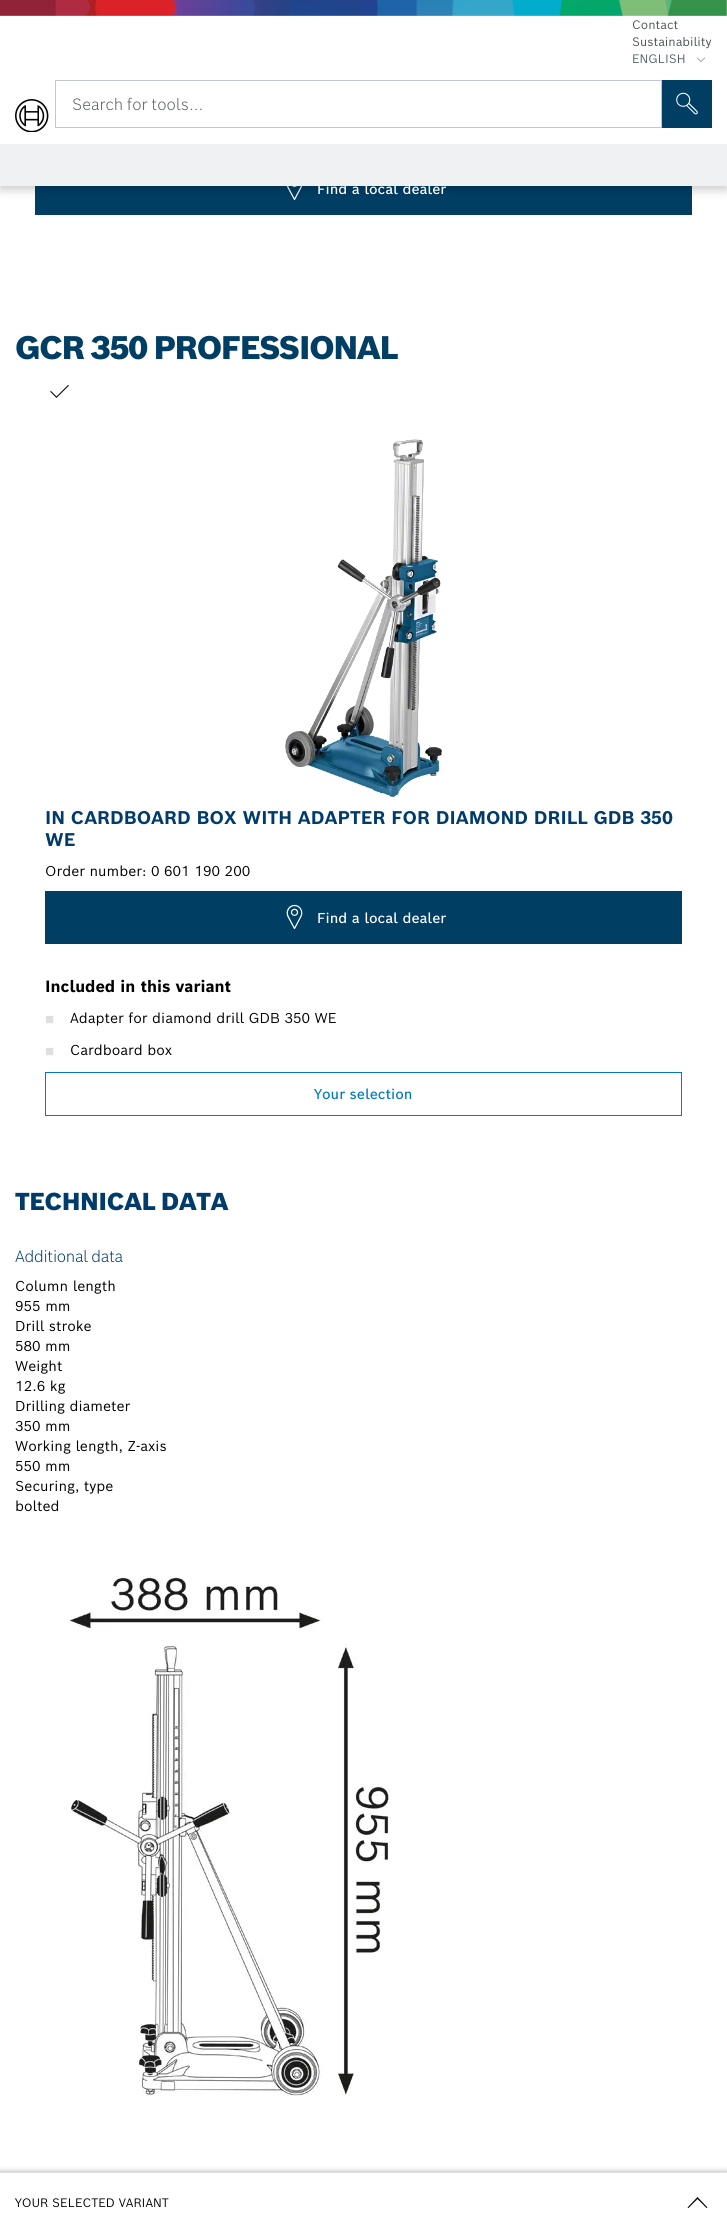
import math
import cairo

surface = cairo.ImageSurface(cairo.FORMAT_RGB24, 727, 2232)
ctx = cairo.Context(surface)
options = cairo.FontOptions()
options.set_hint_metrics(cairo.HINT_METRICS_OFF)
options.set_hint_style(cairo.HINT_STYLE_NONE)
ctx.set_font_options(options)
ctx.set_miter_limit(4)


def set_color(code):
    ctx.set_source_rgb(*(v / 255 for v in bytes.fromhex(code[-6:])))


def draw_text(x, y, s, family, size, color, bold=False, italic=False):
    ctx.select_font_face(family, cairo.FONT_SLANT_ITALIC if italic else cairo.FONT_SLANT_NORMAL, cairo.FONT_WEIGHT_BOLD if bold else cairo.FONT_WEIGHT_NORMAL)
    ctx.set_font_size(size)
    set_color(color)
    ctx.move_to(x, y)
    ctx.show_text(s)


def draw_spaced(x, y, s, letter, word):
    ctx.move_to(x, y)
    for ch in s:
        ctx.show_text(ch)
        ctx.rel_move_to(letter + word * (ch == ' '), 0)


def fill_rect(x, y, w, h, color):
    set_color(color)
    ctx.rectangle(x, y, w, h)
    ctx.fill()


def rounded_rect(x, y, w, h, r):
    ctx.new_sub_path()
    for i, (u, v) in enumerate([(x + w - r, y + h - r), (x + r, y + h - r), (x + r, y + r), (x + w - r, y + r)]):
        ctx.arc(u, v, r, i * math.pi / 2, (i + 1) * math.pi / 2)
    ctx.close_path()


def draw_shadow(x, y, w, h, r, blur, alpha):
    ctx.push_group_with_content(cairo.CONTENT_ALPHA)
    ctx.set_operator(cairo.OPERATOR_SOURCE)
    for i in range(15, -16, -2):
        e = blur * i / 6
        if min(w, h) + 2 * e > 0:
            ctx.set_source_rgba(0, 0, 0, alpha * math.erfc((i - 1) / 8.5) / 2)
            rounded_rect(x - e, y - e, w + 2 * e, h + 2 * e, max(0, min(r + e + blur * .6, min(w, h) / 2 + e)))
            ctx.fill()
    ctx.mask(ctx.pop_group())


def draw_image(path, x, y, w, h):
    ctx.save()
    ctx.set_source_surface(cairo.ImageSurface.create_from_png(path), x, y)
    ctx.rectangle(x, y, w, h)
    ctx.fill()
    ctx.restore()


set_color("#ffffff")
ctx.paint()
fill_rect(35, 186, 657, 29, "#003e64")
draw_image("assets/img5.png", 286, 186, 16, 15)
set_color("#000000")
draw_shadow(0, 20, 727, 170, 0, 5, 0.2)
fill_rect(0, 16, 727, 128, "#ffffff")
draw_image("assets/img1.png", 0, 0, 727, 16)
draw_text(632, 29, "Contact", "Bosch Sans", 12, "#4e5256")
draw_text(632, 46, "Sustainability", "Bosch Sans", 12, "#4e5256")
draw_text(632, 63, "ENGLISH", "Bosch Sans", 12, "#525f6b")
draw_image("assets/img2.png", 696, 57, 10, 5)
draw_image("assets/img3.png", 15, 99, 34, 33)
ctx.rectangle(55.5, 80.5, 606, 47)
set_color("#c1c7cc")
ctx.set_line_width(1)
ctx.stroke()
draw_text(72, 110, "Search for tools...", "Bosch Sans Light", 16, "#595e62")
fill_rect(662, 80, 50, 48, "#003e64")
draw_image("assets/img4.png", 676, 92, 22, 23)
draw_text(317, 194, "Find a local dealer", "Bosch Sans Medium", 14, "#ffffff")
fill_rect(0, 144, 727, 42, "#eff1f2")
ctx.select_font_face("Bosch Sans Black")
ctx.set_font_size(32)
set_color("#003e64")
draw_spaced(15, 359, "GCR 350 PROFESSIONAL", -1.4, 0)
set_color("#000000")
ctx.new_path()
ctx.move_to(56.5, 398)
ctx.line_to(50, 391.5)
ctx.line_to(51, 391)
ctx.line_to(56.5, 396.5)
ctx.line_to(68, 385)
ctx.line_to(69, 385.5)
ctx.close_path()
ctx.fill()
draw_image("assets/img6.png", 285, 439, 157, 358)
draw_text(45, 824, "IN CARDBOARD BOX WITH ADAPTER FOR DIAMOND DRILL GDB 350", "Bosch Sans", 18, "#003b6a", bold=True)
draw_text(45, 846, "WE", "Bosch Sans", 18, "#003b6a", bold=True)
draw_text(45, 876, "Order number: 0 601 190 200", "Bosch Sans", 14, "#000000")
fill_rect(45, 891, 637, 53, "#003e64")
draw_image("assets/img7.png", 286, 904, 17, 26)
draw_text(317, 923, "Find a local dealer", "Bosch Sans Medium", 14, "#ffffff")
draw_text(45, 992, "Included in this variant", "Bosch Sans", 16, "#000000", bold=True)
draw_text(45, 1024, "■", "Liberation Sans", 15, "#dfdfe0")
draw_text(70, 1023, "Adapter for diamond drill GDB 350 WE", "Bosch Sans", 14, "#000000")
draw_text(45, 1056, "■", "Liberation Sans", 15, "#dfdfe0")
draw_text(70, 1055, "Cardboard box", "Bosch Sans", 14, "#000000")
ctx.rectangle(45.5, 1072.5, 636, 43)
set_color("#007bc0")
ctx.stroke()
draw_text(314, 1099, "Your selection", "Bosch Sans Medium", 14, "#007bc0")
ctx.select_font_face("Bosch Sans Black")
ctx.set_font_size(24)
set_color("#003b6a")
draw_spaced(15, 1210, "TECHNICAL DATA", -0.5, 0)
ctx.select_font_face("Bosch Sans Light")
ctx.set_font_size(16)
draw_spaced(15, 1262, "Additional data", -0.3, 0)
draw_text(15, 1291, "Column length", "Bosch Sans", 14, "#000000")
draw_text(15, 1311, "955 mm", "Bosch Sans", 14, "#000000")
draw_text(15, 1331, "Drill stroke", "Bosch Sans", 14, "#000000")
draw_text(15, 1351, "580 mm", "Bosch Sans", 14, "#000000")
draw_text(15, 1371, "Weight", "Bosch Sans", 14, "#000000")
draw_text(15, 1391, "12.6 kg", "Bosch Sans", 14, "#000000")
draw_text(15, 1411, "Drilling diameter", "Bosch Sans", 14, "#000000")
draw_text(15, 1431, "350 mm", "Bosch Sans", 14, "#000000")
draw_text(15, 1451, "Working length, Z-axis", "Bosch Sans", 14, "#000000")
draw_text(15, 1471, "550 mm", "Bosch Sans", 14, "#000000")
draw_text(15, 1491, "Securing, type", "Bosch Sans", 14, "#000000")
draw_text(15, 1511, "bolted", "Bosch Sans", 14, "#000000")
draw_image("assets/img8.png", 70, 1576, 320, 520)
set_color("#bfc0c2")
draw_shadow(0, 2171, 727, 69, 0, 2.5, 1)
fill_rect(0, 2173, 727, 59, "#ffffff")
fill_rect(0, 2172, 727, 1, "#dfdfe0")
draw_text(15, 2207, "YOUR SELECTED VARIANT", "Bosch Sans", 12, "#000000")
ctx.new_path()
ctx.move_to(688.5, 2208)
ctx.line_to(697.5, 2199)
ctx.line_to(706.5, 2208)
ctx.line_to(707.5, 2207.5)
ctx.line_to(697.5, 2197)
ctx.line_to(687.5, 2207.5)
ctx.close_path()
ctx.fill()
surface.write_to_png("output.png")
